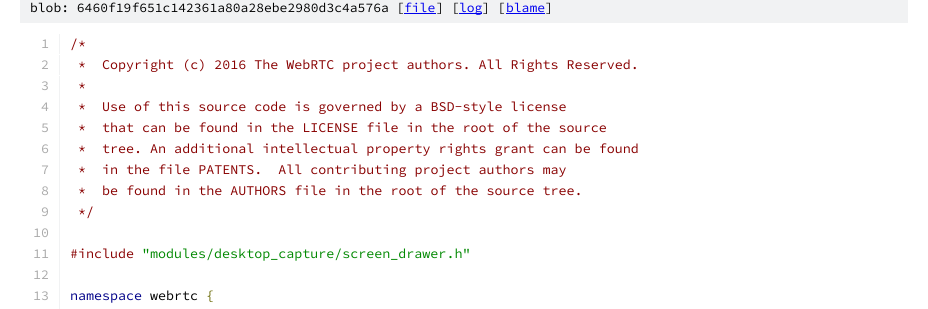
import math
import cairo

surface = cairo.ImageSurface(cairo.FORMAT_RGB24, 928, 309)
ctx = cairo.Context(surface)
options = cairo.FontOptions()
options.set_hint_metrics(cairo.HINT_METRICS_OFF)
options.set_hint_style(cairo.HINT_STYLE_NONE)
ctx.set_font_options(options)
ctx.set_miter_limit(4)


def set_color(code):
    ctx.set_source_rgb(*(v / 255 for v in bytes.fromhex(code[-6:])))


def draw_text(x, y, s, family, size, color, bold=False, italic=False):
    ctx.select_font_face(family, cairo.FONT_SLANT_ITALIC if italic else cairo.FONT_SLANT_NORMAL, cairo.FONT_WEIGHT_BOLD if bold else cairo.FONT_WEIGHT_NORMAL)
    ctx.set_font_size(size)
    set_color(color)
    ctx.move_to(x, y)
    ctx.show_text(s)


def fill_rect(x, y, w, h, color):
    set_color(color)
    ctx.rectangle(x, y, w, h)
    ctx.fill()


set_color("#ffffff")
ctx.paint()
fill_rect(20, 0, 888, 23, "#f1f2f3")
draw_text(30, 12, "blob: 6460f19f651c142361a80a28ebe2980d3c4a576a [", "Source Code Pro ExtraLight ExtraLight", 13, "#000000")
draw_text(404, 12, "file", "Source Code Pro ExtraLight ExtraLight", 13, "#0000ee")
fill_rect(404, 13, 32, 1, "#0000ee")
draw_text(436, 12, "] [", "Source Code Pro ExtraLight ExtraLight", 13, "#000000")
fill_rect(459, 13, 23, 1, "#0000ee")
draw_text(459, 12, "log", "Source Code Pro ExtraLight ExtraLight", 13, "#0000ee")
draw_text(482, 12, "] [", "Source Code Pro ExtraLight ExtraLight", 13, "#000000")
draw_text(506, 12, "blame", "Source Code Pro ExtraLight ExtraLight", 13, "#0000ee")
fill_rect(506, 13, 39, 1, "#0000ee")
draw_text(545, 12, "]", "Source Code Pro ExtraLight ExtraLight", 13, "#000000")
fill_rect(59, 34, 1, 20, "#f1f2f3")
draw_text(41, 48, "1", "Source Code Pro ExtraLight ExtraLight", 13.35, "#aaaaaa")
draw_text(70, 48, "/*", "Source Code Pro ExtraLight ExtraLight", 13.35, "#880000")
fill_rect(59, 55, 1, 20, "#f1f2f3")
draw_text(41, 69, "2", "Source Code Pro ExtraLight ExtraLight", 13.35, "#aaaaaa")
draw_text(78, 69, "*  Copyright (c) 2016 The WebRTC project authors. All Rights Reserved.", "Source Code Pro ExtraLight ExtraLight", 13.35, "#880000")
fill_rect(59, 76, 1, 233, "#f1f2f3")
draw_text(41, 90, "3", "Source Code Pro ExtraLight ExtraLight", 13.35, "#aaaaaa")
draw_text(78, 90, "*", "Source Code Pro ExtraLight ExtraLight", 13.35, "#880000")
draw_text(41, 111, "4", "Source Code Pro ExtraLight ExtraLight", 13.35, "#aaaaaa")
draw_text(78, 111, "*  Use of this source code is governed by a BSD-style license", "Source Code Pro ExtraLight ExtraLight", 13.35, "#880000")
draw_text(41, 132, "5", "Source Code Pro ExtraLight ExtraLight", 13.35, "#aaaaaa")
draw_text(78, 132, "*  that can be found in the LICENSE file in the root of the source", "Source Code Pro ExtraLight ExtraLight", 13.35, "#880000")
draw_text(41, 153, "6", "Source Code Pro ExtraLight ExtraLight", 13.35, "#aaaaaa")
draw_text(78, 153, "*  tree. An additional intellectual property rights grant can be found", "Source Code Pro ExtraLight ExtraLight", 13.35, "#880000")
draw_text(41, 174, "7", "Source Code Pro ExtraLight ExtraLight", 13.35, "#aaaaaa")
draw_text(78, 174, "*  in the file PATENTS.  All contributing project authors may", "Source Code Pro ExtraLight ExtraLight", 13.35, "#880000")
draw_text(41, 195, "8", "Source Code Pro ExtraLight ExtraLight", 13.35, "#aaaaaa")
draw_text(78, 195, "*  be found in the AUTHORS file in the root of the source tree.", "Source Code Pro ExtraLight ExtraLight", 13.35, "#880000")
draw_text(41, 216, "9", "Source Code Pro ExtraLight ExtraLight", 13.35, "#aaaaaa")
draw_text(78, 216, "*/", "Source Code Pro ExtraLight ExtraLight", 13.35, "#880000")
draw_text(33, 237, "10", "Source Code Pro ExtraLight ExtraLight", 13.35, "#aaaaaa")
draw_text(33, 258, "11", "Source Code Pro ExtraLight ExtraLight", 13.35, "#aaaaaa")
draw_text(70, 258, "#include", "Source Code Pro ExtraLight ExtraLight", 13.35, "#880000")
draw_text(142, 258, "\"modules/desktop_capture/screen_drawer.h\"", "Source Code Pro ExtraLight ExtraLight", 13.35, "#008800")
draw_text(33, 279, "12", "Source Code Pro ExtraLight ExtraLight", 13.35, "#aaaaaa")
draw_text(33, 300, "13", "Source Code Pro ExtraLight ExtraLight", 13.35, "#aaaaaa")
draw_text(70, 300, "namespace", "Source Code Pro ExtraLight ExtraLight", 13.35, "#000088")
draw_text(150, 300, "webrtc", "Source Code Pro ExtraLight ExtraLight", 13.35, "#000000")
draw_text(206, 300, "{", "Source Code Pro ExtraLight ExtraLight", 13.35, "#666600")
surface.write_to_png("output.png")
